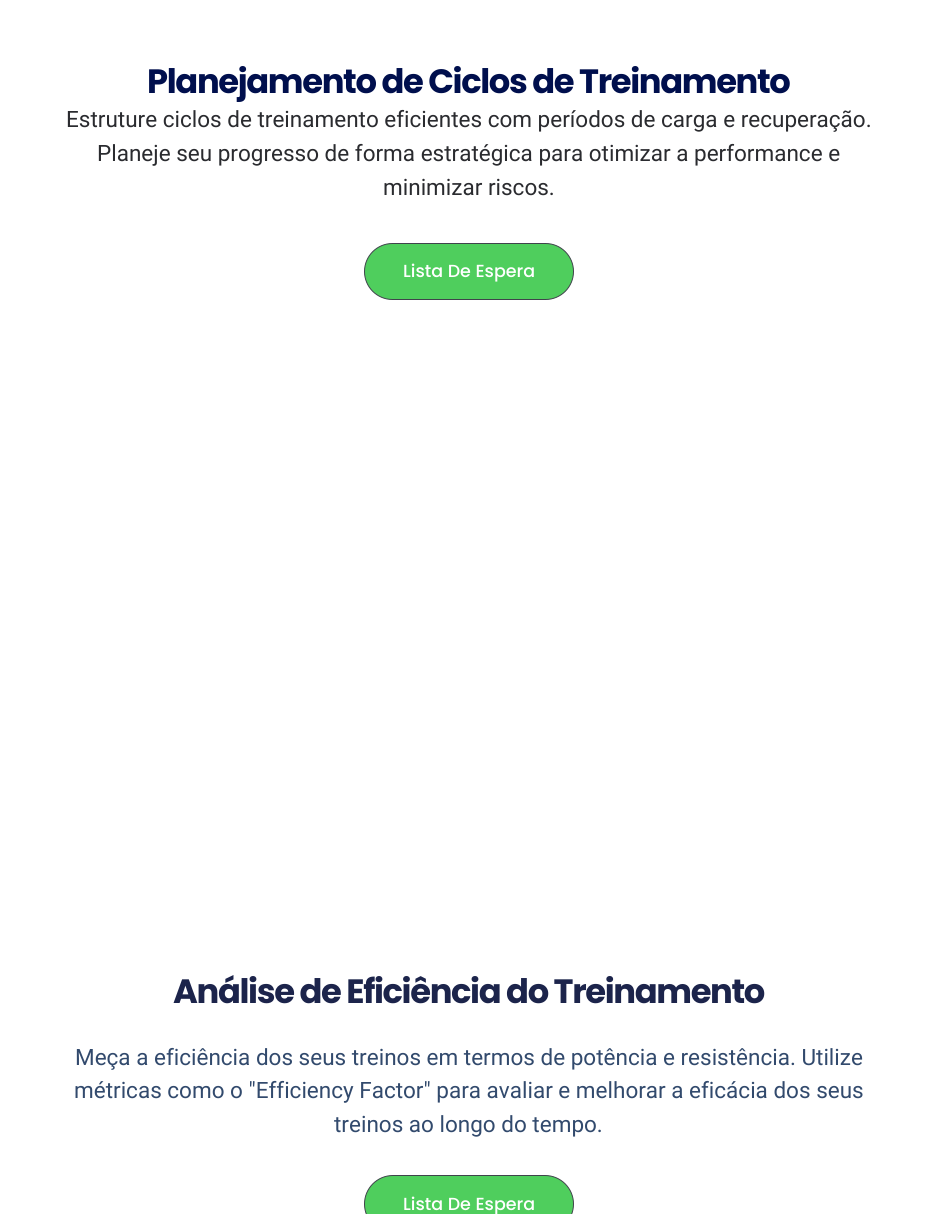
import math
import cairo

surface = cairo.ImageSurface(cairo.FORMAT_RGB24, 937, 1214)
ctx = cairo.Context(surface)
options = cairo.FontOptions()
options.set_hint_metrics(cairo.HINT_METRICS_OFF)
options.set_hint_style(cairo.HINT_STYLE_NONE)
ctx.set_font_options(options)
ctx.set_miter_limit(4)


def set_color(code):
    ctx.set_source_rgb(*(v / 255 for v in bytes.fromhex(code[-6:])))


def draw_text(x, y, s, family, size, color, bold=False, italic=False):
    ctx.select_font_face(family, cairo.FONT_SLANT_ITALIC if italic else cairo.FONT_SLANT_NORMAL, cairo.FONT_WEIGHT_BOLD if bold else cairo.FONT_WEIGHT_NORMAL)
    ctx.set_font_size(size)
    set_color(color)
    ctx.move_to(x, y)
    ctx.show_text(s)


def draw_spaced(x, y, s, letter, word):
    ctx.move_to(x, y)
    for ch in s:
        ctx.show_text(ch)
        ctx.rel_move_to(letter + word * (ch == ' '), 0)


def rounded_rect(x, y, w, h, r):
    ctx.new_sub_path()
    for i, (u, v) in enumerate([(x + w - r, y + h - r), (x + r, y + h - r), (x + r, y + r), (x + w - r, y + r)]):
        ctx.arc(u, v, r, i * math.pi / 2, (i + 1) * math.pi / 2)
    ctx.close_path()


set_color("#ffffff")
ctx.paint()
ctx.select_font_face("Poppins", cairo.FONT_SLANT_NORMAL, cairo.FONT_WEIGHT_BOLD)
ctx.set_font_size(33.75)
set_color("#000f4d")
draw_spaced(147, 93, "Planejamento de Ciclos de Treinamento", -1.35, 0)
draw_text(66, 127, "Estruture ciclos de treinamento eficientes com períodos de carga e recuperação.", "Roboto", 22.5, "#2a2b2f")
draw_text(97, 161, "Planeje seu progresso de forma estratégica para otimizar a performance e", "Roboto", 22.5, "#2a2b2f")
draw_text(383, 195, "minimizar riscos.", "Roboto", 22.5, "#2a2b2f")
set_color("#4fce5d")
rounded_rect(364.5, 243.5, 209, 56, 28)
ctx.fill_preserve()
set_color("#3f444b")
ctx.set_line_width(1)
ctx.stroke()
draw_text(403, 277, "Lista De Espera", "Poppins Medium", 17.5, "#ffffff")
ctx.select_font_face("Poppins", cairo.FONT_SLANT_NORMAL, cairo.FONT_WEIGHT_BOLD)
ctx.set_font_size(33.75)
set_color("#1c244b")
draw_spaced(173, 1003, "Análise de Eficiência do Treinamento", -1.35, 0)
draw_text(75, 1065, "Meça a eficiência dos seus treinos em termos de potência e resistência. Utilize", "Roboto", 22.5, "#324a6d")
draw_text(74, 1098, "métricas como o \"Efficiency Factor\" para avaliar e melhorar a eficácia dos seus", "Roboto", 22.5, "#324a6d")
draw_text(334, 1132, "treinos ao longo do tempo.", "Roboto", 22.5, "#324a6d")
set_color("#4fce5d")
rounded_rect(364.5, 1175.5, 209, 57, 28.5)
ctx.fill_preserve()
set_color("#3f444b")
ctx.stroke()
draw_text(403, 1210, "Lista De Espera", "Poppins Medium", 17.5, "#ffffff")
surface.write_to_png("output.png")
